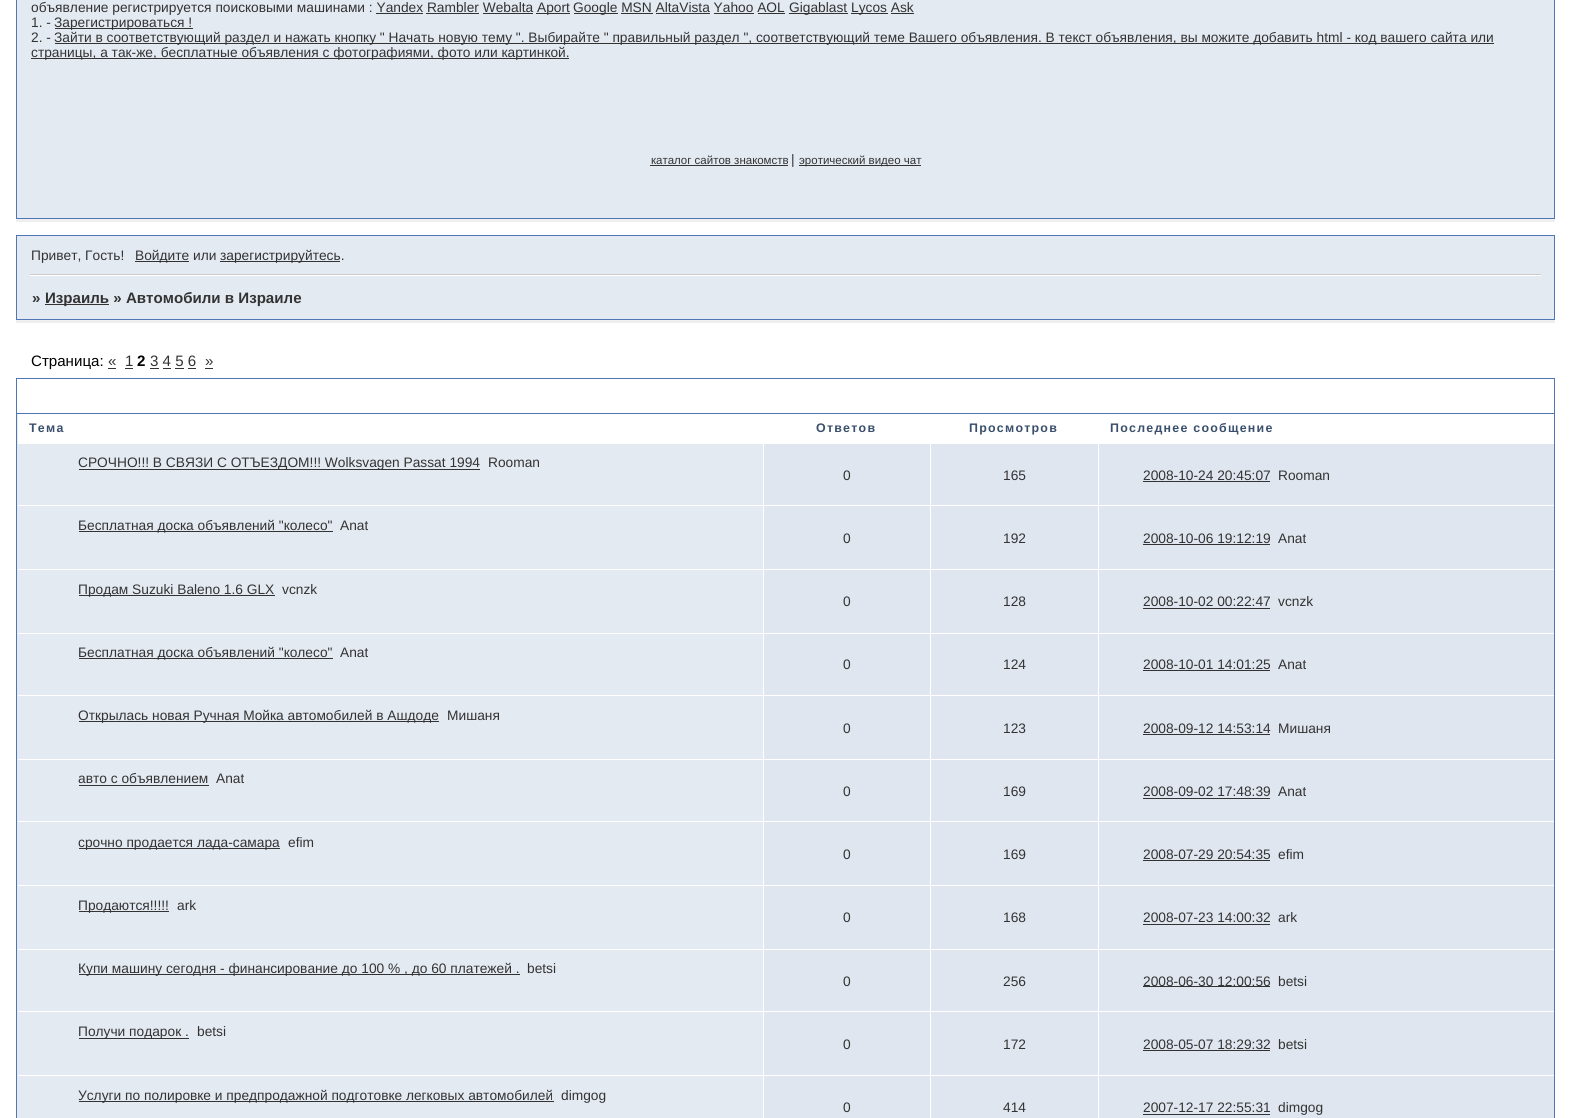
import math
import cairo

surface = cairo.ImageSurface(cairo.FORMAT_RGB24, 1571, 1118)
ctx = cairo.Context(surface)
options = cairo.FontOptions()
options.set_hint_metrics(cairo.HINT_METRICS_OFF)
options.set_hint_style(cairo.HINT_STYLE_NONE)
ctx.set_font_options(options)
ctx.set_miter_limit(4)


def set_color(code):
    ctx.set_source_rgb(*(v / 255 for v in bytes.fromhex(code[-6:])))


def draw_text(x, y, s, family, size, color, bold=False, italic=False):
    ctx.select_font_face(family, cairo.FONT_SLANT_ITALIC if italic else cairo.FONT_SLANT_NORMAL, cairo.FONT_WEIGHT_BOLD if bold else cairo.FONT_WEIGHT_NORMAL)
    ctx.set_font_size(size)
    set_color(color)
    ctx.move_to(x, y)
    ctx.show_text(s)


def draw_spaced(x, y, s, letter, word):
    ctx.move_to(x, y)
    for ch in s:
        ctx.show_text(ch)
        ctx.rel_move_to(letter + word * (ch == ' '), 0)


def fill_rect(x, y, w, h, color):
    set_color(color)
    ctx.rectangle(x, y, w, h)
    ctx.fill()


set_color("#ffffff")
ctx.paint()
fill_rect(16, 219, 1539, 3, "#efefef")
set_color("#e4eaf2")
ctx.rectangle(16.5, -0.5, 1538, 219)
ctx.fill_preserve()
set_color("#5176b5")
ctx.set_line_width(1)
ctx.stroke()
draw_text(31, 12, "объявление регистрируется поисковыми машинами : Yandex Rambler Webalta", "Liberation Sans", 13.75, "#333333")
fill_rect(536, 13, 34, 1, "#333333")
draw_text(537, 12, "Aport", "Liberation Sans", 13.75, "#333333")
fill_rect(574, 13, 44, 1, "#333333")
draw_text(573, 12, "Google MSN AltaVista Yahoo AOL", "Liberation Sans", 13.75, "#333333")
fill_rect(789, 13, 59, 1, "#333333")
draw_text(789, 12, "Gigablast", "Liberation Sans", 13.75, "#333333")
fill_rect(851, 13, 37, 1, "#333333")
draw_text(851, 12, "Lycos Ask", "Liberation Sans", 13.75, "#333333")
fill_rect(376, 13, 47, 1, "#333333")
fill_rect(426, 13, 53, 1, "#333333")
fill_rect(483, 13, 50, 1, "#333333")
fill_rect(621, 13, 32, 1, "#333333")
fill_rect(656, 13, 54, 1, "#333333")
fill_rect(714, 13, 40, 1, "#333333")
fill_rect(758, 13, 27, 1, "#333333")
fill_rect(891, 13, 23, 1, "#333333")
draw_text(31, 27, "1. -", "Liberation Sans", 13.75, "#333333")
fill_rect(55, 28, 138, 1, "#333333")
draw_text(54, 27, "Зарегистрироваться !", "Liberation Sans", 13.75, "#333333")
draw_text(31, 42, "2. -", "Liberation Sans", 13.75, "#333333")
fill_rect(55, 43, 1439, 1, "#333333")
draw_text(54, 42, "Зайти в соответствующий раздел и нажать кнопку \" Начать новую тему \". Выбирайте \" правильный раздел \", соответствующий теме Вашего объявления. В текст объявления, вы можите добавить html - код вашего сайта или", "Liberation Sans", 13.75, "#333333")
fill_rect(31, 58, 538, 1, "#333333")
draw_text(31, 57, "страницы, а так-же, бесплатные объявления с фотографиями, фото или картинкой.", "Liberation Sans", 13.75, "#333333")
draw_text(651, 164, "каталог сайтов знакомств", "Liberation Sans", 11.5, "#333333")
fill_rect(650, 165, 138, 1, "#333333")
draw_text(791, 164, "|", "Liberation Sans", 13.75, "#333333")
fill_rect(799, 165, 122, 1, "#333333")
draw_text(799, 164, "эротический видео чат", "Liberation Sans", 11.5, "#333333")
fill_rect(17, 236, 1537, 83, "#e4eaf2")
fill_rect(16, 235, 1539, 1, "#5176b5")
fill_rect(1554, 235, 1, 85, "#5176b5")
fill_rect(16, 235, 1, 41, "#5176b5")
draw_text(31, 260, "Привет, Гость!", "Liberation Sans", 13.75, "#333333")
fill_rect(135, 261, 54, 1, "#333333")
draw_text(135, 260, "Войдите или", "Liberation Sans", 13.75, "#333333")
fill_rect(220, 261, 120, 1, "#333333")
draw_text(220, 260, "зарегистрируйтесь.", "Liberation Sans", 13.75, "#333333")
fill_rect(30, 274, 1511, 1, "#cccccc")
fill_rect(30, 275, 1511, 1, "#ffffff")
fill_rect(16, 320, 1539, 3, "#efefef")
fill_rect(16, 319, 1539, 1, "#5176b5")
fill_rect(16, 274, 1, 46, "#5176b5")
draw_text(32, 303, "»", "Liberation Sans", 15.1, "#333333", bold=True)
fill_rect(45, 304, 64, 1, "#333333")
draw_text(45, 303, "Израиль » Автомобили в Израиле", "Liberation Sans", 15.1, "#333333", bold=True)
draw_text(31, 366, "Страница:", "Liberation Sans", 15.1, "#000000")
draw_text(108, 366, "«", "Liberation Sans", 15.1, "#333333")
fill_rect(108, 368, 8, 1, "#333333")
draw_text(125, 366, "1", "Liberation Sans", 15.1, "#333333")
fill_rect(125, 368, 8, 1, "#333333")
draw_text(137, 366, "2", "Liberation Sans", 15.1, "#000000", bold=True)
draw_text(150, 366, "3 4 5 6", "Liberation Sans", 15.1, "#333333")
fill_rect(150, 368, 9, 1, "#333333")
draw_text(205, 366, "»", "Liberation Sans", 15.1, "#333333")
fill_rect(205, 368, 8, 1, "#333333")
fill_rect(163, 368, 8, 1, "#333333")
fill_rect(175, 368, 9, 1, "#333333")
fill_rect(188, 368, 8, 1, "#333333")
fill_rect(16, 378, 1539, 1, "#5176b5")
fill_rect(1554, 378, 1, 35, "#5176b5")
fill_rect(16, 378, 1, 35, "#5176b5")
fill_rect(17, 414, 746, 704, "#e4eaf2")
ctx.rectangle(16.5, 413.5, 1538, 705)
set_color("#5176b5")
ctx.stroke()
fill_rect(18, 414, 745, 30, "#ffffff")
ctx.select_font_face("Liberation Sans", cairo.FONT_SLANT_NORMAL, cairo.FONT_WEIGHT_BOLD)
ctx.set_font_size(12.4)
set_color("#3a4f6c")
draw_spaced(29, 432, "Тема", 1.25, 0)
draw_spaced(816, 432, "Ответов", 1.25, 0)
draw_spaced(969, 432, "Просмотров", 1.25, 0)
draw_spaced(1110, 432, "Последнее сообщение", 1.25, 0)
fill_rect(79, 469, 401, 1, "#333333")
draw_text(78, 467, "СРОЧНО!!! В СВЯЗИ С ОТЪЕЗДОМ!!! Wolksvagen Passat 1994", "Liberation Sans", 13.75, "#333333")
draw_text(488, 467, "Rooman", "Liberation Sans", 13.75, "#333333")
fill_rect(764, 444, 166, 61, "#dfe6ef")
draw_text(843, 480, "0", "Liberation Sans", 13.75, "#333333")
fill_rect(931, 444, 167, 61, "#dfe6ef")
draw_text(1003, 480, "165", "Liberation Sans", 13.75, "#333333")
fill_rect(1099, 444, 455, 61, "#dfe6ef")
draw_text(1143, 480, "2008-10-24 20:45:07", "Liberation Sans", 13.75, "#333333")
fill_rect(1143, 481, 127, 1, "#333333")
draw_text(1278, 480, "Rooman", "Liberation Sans", 13.75, "#333333")
fill_rect(18, 505, 745, 1, "#ffffff")
fill_rect(79, 531, 254, 1, "#333333")
draw_text(78, 530, "Бесплатная доска объявлений \"колесо\"", "Liberation Sans", 13.75, "#333333")
draw_text(340, 530, "Anat", "Liberation Sans", 13.75, "#333333")
fill_rect(764, 506, 166, 63, "#dfe6ef")
draw_text(843, 543, "0", "Liberation Sans", 13.75, "#333333")
fill_rect(931, 506, 167, 63, "#dfe6ef")
draw_text(1003, 543, "192", "Liberation Sans", 13.75, "#333333")
fill_rect(1099, 506, 455, 63, "#dfe6ef")
draw_text(1143, 543, "2008-10-06 19:12:19", "Liberation Sans", 13.75, "#333333")
fill_rect(1143, 544, 127, 1, "#333333")
draw_text(1278, 543, "Anat", "Liberation Sans", 13.75, "#333333")
fill_rect(18, 569, 745, 1, "#ffffff")
fill_rect(79, 595, 196, 1, "#333333")
draw_text(78, 594, "Продам Suzuki Baleno 1.6 GLX", "Liberation Sans", 13.75, "#333333")
draw_text(282, 594, "vcnzk", "Liberation Sans", 13.75, "#333333")
fill_rect(764, 570, 166, 63, "#dfe6ef")
draw_text(843, 606, "0", "Liberation Sans", 13.75, "#333333")
fill_rect(931, 570, 167, 63, "#dfe6ef")
draw_text(1003, 606, "128", "Liberation Sans", 13.75, "#333333")
fill_rect(1099, 570, 455, 63, "#dfe6ef")
draw_text(1143, 606, "2008-10-02 00:22:47", "Liberation Sans", 13.75, "#333333")
fill_rect(1143, 608, 127, 1, "#333333")
draw_text(1278, 606, "vcnzk", "Liberation Sans", 13.75, "#333333")
fill_rect(18, 633, 745, 1, "#ffffff")
fill_rect(79, 658, 254, 1, "#333333")
draw_text(78, 657, "Бесплатная доска объявлений \"колесо\"", "Liberation Sans", 13.75, "#333333")
draw_text(340, 657, "Anat", "Liberation Sans", 13.75, "#333333")
fill_rect(764, 634, 166, 61, "#dfe6ef")
draw_text(843, 669, "0", "Liberation Sans", 13.75, "#333333")
fill_rect(931, 634, 167, 61, "#dfe6ef")
draw_text(1003, 669, "124", "Liberation Sans", 13.75, "#333333")
fill_rect(1099, 634, 455, 61, "#dfe6ef")
draw_text(1143, 669, "2008-10-01 14:01:25", "Liberation Sans", 13.75, "#333333")
fill_rect(1143, 670, 127, 1, "#333333")
draw_text(1278, 669, "Anat", "Liberation Sans", 13.75, "#333333")
fill_rect(18, 695, 745, 1, "#ffffff")
fill_rect(79, 721, 360, 1, "#333333")
draw_text(78, 720, "Открылась новая Ручная Мойка автомобилей в Ашдоде", "Liberation Sans", 13.75, "#333333")
draw_text(447, 720, "Мишаня", "Liberation Sans", 13.75, "#333333")
fill_rect(764, 696, 166, 63, "#dfe6ef")
draw_text(843, 733, "0", "Liberation Sans", 13.75, "#333333")
fill_rect(931, 696, 167, 63, "#dfe6ef")
draw_text(1003, 733, "123", "Liberation Sans", 13.75, "#333333")
fill_rect(1099, 696, 455, 63, "#dfe6ef")
draw_text(1143, 733, "2008-09-12 14:53:14", "Liberation Sans", 13.75, "#333333")
fill_rect(1143, 734, 127, 1, "#333333")
draw_text(1278, 733, "Мишаня", "Liberation Sans", 13.75, "#333333")
fill_rect(18, 759, 745, 1, "#ffffff")
draw_text(78, 783, "авто с объявлением", "Liberation Sans", 13.75, "#333333")
fill_rect(79, 785, 130, 1, "#333333")
draw_text(216, 783, "Anat", "Liberation Sans", 13.75, "#333333")
fill_rect(764, 760, 166, 61, "#dfe6ef")
draw_text(843, 796, "0", "Liberation Sans", 13.75, "#333333")
fill_rect(931, 760, 167, 61, "#dfe6ef")
draw_text(1003, 796, "169", "Liberation Sans", 13.75, "#333333")
fill_rect(1099, 760, 455, 61, "#dfe6ef")
draw_text(1143, 796, "2008-09-02 17:48:39", "Liberation Sans", 13.75, "#333333")
fill_rect(1143, 798, 127, 1, "#333333")
draw_text(1278, 796, "Anat", "Liberation Sans", 13.75, "#333333")
fill_rect(18, 821, 745, 1, "#ffffff")
fill_rect(79, 848, 201, 1, "#333333")
draw_text(78, 847, "срочно продается лада-самара", "Liberation Sans", 13.75, "#333333")
draw_text(288, 847, "efim", "Liberation Sans", 13.75, "#333333")
fill_rect(764, 822, 166, 63, "#dfe6ef")
draw_text(843, 859, "0", "Liberation Sans", 13.75, "#333333")
fill_rect(931, 822, 167, 63, "#dfe6ef")
draw_text(1003, 859, "169", "Liberation Sans", 13.75, "#333333")
fill_rect(1099, 822, 455, 63, "#dfe6ef")
draw_text(1143, 859, "2008-07-29 20:54:35", "Liberation Sans", 13.75, "#333333")
fill_rect(1143, 860, 127, 1, "#333333")
draw_text(1278, 859, "efim", "Liberation Sans", 13.75, "#333333")
fill_rect(18, 885, 745, 1, "#ffffff")
fill_rect(79, 911, 90, 1, "#333333")
draw_text(78, 910, "Продаются!!!!!", "Liberation Sans", 13.75, "#333333")
draw_text(177, 910, "ark", "Liberation Sans", 13.75, "#333333")
fill_rect(764, 886, 166, 63, "#dfe6ef")
draw_text(843, 922, "0", "Liberation Sans", 13.75, "#333333")
fill_rect(931, 886, 167, 63, "#dfe6ef")
draw_text(1003, 922, "168", "Liberation Sans", 13.75, "#333333")
fill_rect(1099, 886, 455, 63, "#dfe6ef")
draw_text(1143, 922, "2008-07-23 14:00:32", "Liberation Sans", 13.75, "#333333")
fill_rect(1143, 924, 127, 1, "#333333")
draw_text(1278, 922, "ark", "Liberation Sans", 13.75, "#333333")
fill_rect(18, 949, 745, 1, "#ffffff")
fill_rect(79, 974, 441, 1, "#333333")
draw_text(78, 973, "Купи машину сегодня - финансирование до 100 % , до 60 платежей .", "Liberation Sans", 13.75, "#333333")
draw_text(527, 973, "betsi", "Liberation Sans", 13.75, "#333333")
fill_rect(764, 950, 166, 61, "#dfe6ef")
draw_text(843, 986, "0", "Liberation Sans", 13.75, "#333333")
fill_rect(931, 950, 167, 61, "#dfe6ef")
draw_text(1003, 986, "256", "Liberation Sans", 13.75, "#333333")
fill_rect(1099, 950, 455, 61, "#dfe6ef")
fill_rect(1143, 986, 127, 1, "#333333")
draw_text(1143, 986, "2008-06-30 12:00:56", "Liberation Sans", 13.75, "#333333")
draw_text(1278, 986, "betsi", "Liberation Sans", 13.75, "#333333")
fill_rect(18, 1011, 745, 1, "#ffffff")
fill_rect(79, 1038, 110, 1, "#333333")
draw_text(78, 1036, "Получи подарок .", "Liberation Sans", 13.75, "#333333")
draw_text(197, 1036, "betsi", "Liberation Sans", 13.75, "#333333")
fill_rect(764, 1012, 166, 63, "#dfe6ef")
draw_text(843, 1049, "0", "Liberation Sans", 13.75, "#333333")
fill_rect(931, 1012, 167, 63, "#dfe6ef")
draw_text(1003, 1049, "172", "Liberation Sans", 13.75, "#333333")
fill_rect(1099, 1012, 455, 63, "#dfe6ef")
draw_text(1143, 1049, "2008-05-07 18:29:32", "Liberation Sans", 13.75, "#333333")
fill_rect(1143, 1050, 127, 1, "#333333")
draw_text(1278, 1049, "betsi", "Liberation Sans", 13.75, "#333333")
fill_rect(18, 1075, 745, 1, "#ffffff")
fill_rect(79, 1101, 475, 1, "#333333")
draw_text(78, 1100, "Услуги по полировке и предпродажной подготовке легковых автомобилей", "Liberation Sans", 13.75, "#333333")
draw_text(561, 1100, "dimgog", "Liberation Sans", 13.75, "#333333")
fill_rect(764, 1076, 166, 42, "#dfe6ef")
draw_text(843, 1112, "0", "Liberation Sans", 13.75, "#333333")
fill_rect(931, 1076, 167, 42, "#dfe6ef")
draw_text(1003, 1112, "414", "Liberation Sans", 13.75, "#333333")
fill_rect(1099, 1076, 455, 42, "#dfe6ef")
draw_text(1143, 1112, "2007-12-17 22:55:31", "Liberation Sans", 13.75, "#333333")
fill_rect(1143, 1114, 127, 1, "#333333")
draw_text(1278, 1112, "dimgog", "Liberation Sans", 13.75, "#333333")
surface.write_to_png("output.png")
